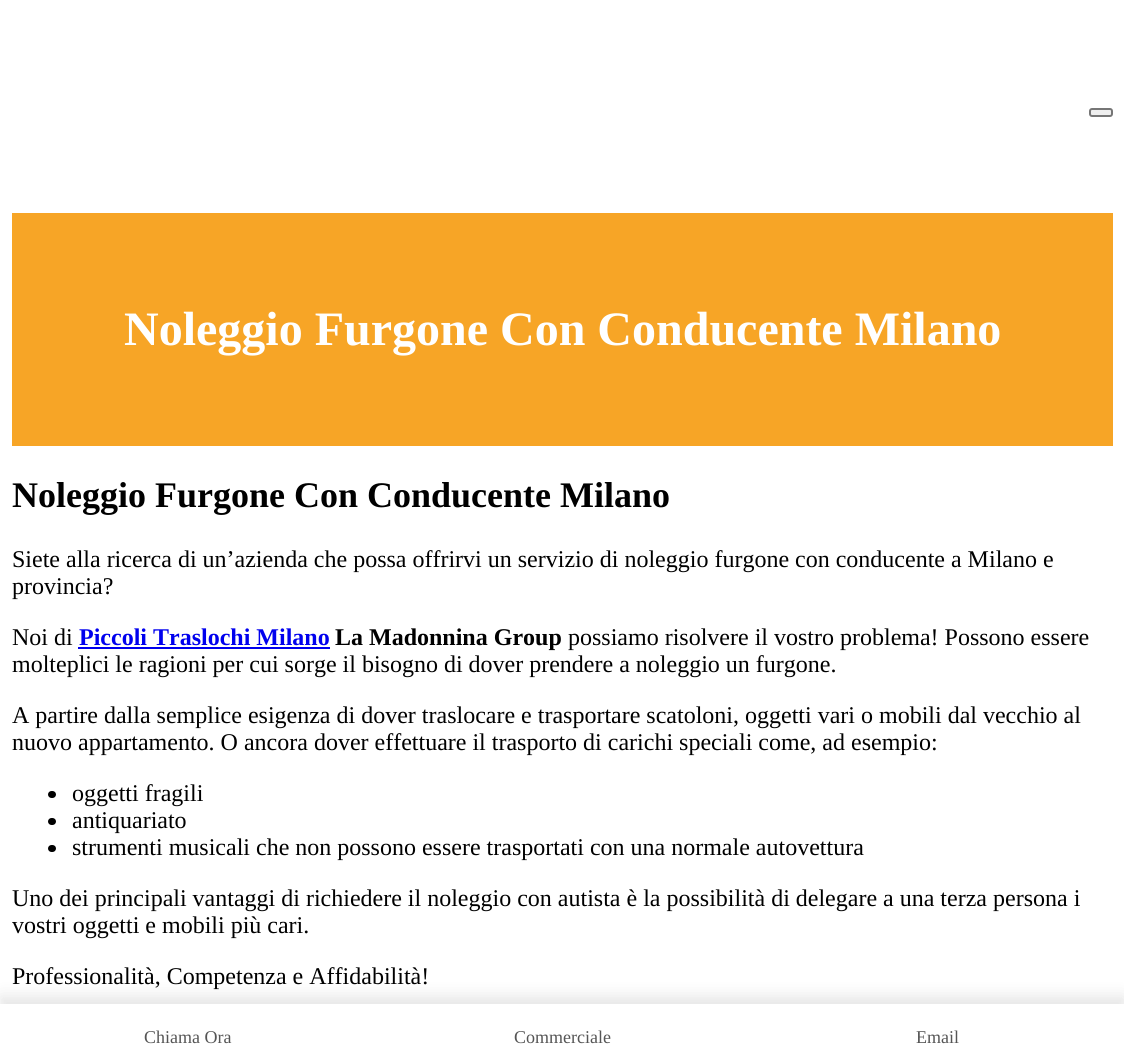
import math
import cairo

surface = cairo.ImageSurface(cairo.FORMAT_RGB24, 1124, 1063)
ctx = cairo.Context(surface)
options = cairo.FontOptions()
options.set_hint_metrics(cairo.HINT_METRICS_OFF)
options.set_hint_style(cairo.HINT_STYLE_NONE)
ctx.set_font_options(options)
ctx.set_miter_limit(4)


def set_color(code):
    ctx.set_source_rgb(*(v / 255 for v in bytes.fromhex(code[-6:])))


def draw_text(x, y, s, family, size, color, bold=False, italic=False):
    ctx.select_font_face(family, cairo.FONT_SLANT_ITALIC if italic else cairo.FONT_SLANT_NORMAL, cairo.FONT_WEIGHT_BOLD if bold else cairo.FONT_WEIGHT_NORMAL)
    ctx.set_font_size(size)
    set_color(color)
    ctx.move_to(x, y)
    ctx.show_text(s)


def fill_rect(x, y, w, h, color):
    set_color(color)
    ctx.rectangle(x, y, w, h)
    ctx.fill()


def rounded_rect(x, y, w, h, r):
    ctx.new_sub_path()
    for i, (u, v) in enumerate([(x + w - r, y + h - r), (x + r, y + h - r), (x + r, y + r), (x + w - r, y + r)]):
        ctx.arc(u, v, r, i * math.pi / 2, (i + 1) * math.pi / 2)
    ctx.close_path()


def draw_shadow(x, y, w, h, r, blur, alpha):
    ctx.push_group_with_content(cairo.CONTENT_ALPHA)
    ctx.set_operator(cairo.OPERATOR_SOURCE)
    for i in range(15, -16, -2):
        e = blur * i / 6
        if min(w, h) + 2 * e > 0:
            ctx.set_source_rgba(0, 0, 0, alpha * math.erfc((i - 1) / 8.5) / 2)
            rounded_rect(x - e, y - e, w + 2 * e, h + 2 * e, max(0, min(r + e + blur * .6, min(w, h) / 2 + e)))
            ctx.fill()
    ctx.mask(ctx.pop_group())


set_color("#ffffff")
ctx.paint()
set_color("#efefef")
rounded_rect(1090, 109, 22, 7, 2)
ctx.fill_preserve()
set_color("#767676")
ctx.stroke()
fill_rect(12, 213, 1101, 233, "#f7a526")
draw_text(124, 345, "Noleggio Furgone Con Conducente Milano", "Liberation Serif", 48, "#ffffff", bold=True)
draw_text(12, 507, "Noleggio Furgone Con Conducente Milano", "Liberation Serif", 36, "#000000", bold=True)
draw_text(12, 567, "Siete alla ricerca di un’azienda che possa offrirvi un servizio di noleggio furgone con conducente a Milano e", "Liberation Serif", 24, "#000000")
draw_text(12, 594, "provincia?", "Liberation Serif", 24, "#000000")
draw_text(12, 645, "Noi di", "Liberation Serif", 24, "#000000")
draw_text(79, 645, "Piccoli Traslochi Milano", "Liberation Serif", 24, "#0000ee", bold=True)
fill_rect(78, 647, 252, 2, "#0000ee")
draw_text(335, 645, "La Madonnina Group", "Liberation Serif", 24, "#000000", bold=True)
draw_text(568, 645, "possiamo risolvere il vostro problema! Possono essere", "Liberation Serif", 24, "#000000")
draw_text(12, 672, "molteplici le ragioni per cui sorge il bisogno di dover prendere a noleggio un furgone.", "Liberation Serif", 24, "#000000")
draw_text(12, 723, "A partire dalla semplice esigenza di dover traslocare e trasportare scatoloni, oggetti vari o mobili dal vecchio al", "Liberation Serif", 24, "#000000")
draw_text(12, 750, "nuovo appartamento. O ancora dover effettuare il trasporto di carichi speciali come, ad esempio:", "Liberation Serif", 24, "#000000")
rounded_rect(48, 791, 8, 7, 3.5)
ctx.fill()
draw_text(72, 801, "oggetti fragili", "Liberation Serif", 24, "#000000")
rounded_rect(48, 818, 8, 7, 3.5)
ctx.fill()
draw_text(72, 828, "antiquariato", "Liberation Serif", 24, "#000000")
rounded_rect(48, 845, 8, 7, 3.5)
ctx.fill()
draw_text(72, 855, "strumenti musicali che non possono essere trasportati con una normale autovettura", "Liberation Serif", 24, "#000000")
draw_text(12, 906, "Uno dei principali vantaggi di richiedere il noleggio con autista è la possibilità di delegare a una terza persona i", "Liberation Serif", 24, "#000000")
draw_text(12, 933, "vostri oggetti e mobili più cari.", "Liberation Serif", 24, "#000000")
draw_text(12, 984, "Professionalità, Competenza e Affidabilità!", "Liberation Serif", 24, "#000000")
set_color("#000000")
draw_shadow(0, 996, 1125, 60, 0, 7.5, 0.1)
fill_rect(0, 1004, 1124, 59, "#ffffff")
draw_text(144, 1043, "Chiama Ora", "Liberation Serif", 18, "#555555")
draw_text(514, 1043, "Commerciale", "Liberation Serif", 18, "#555555")
draw_text(916, 1043, "Email", "Liberation Serif", 18, "#555555")
surface.write_to_png("output.png")
